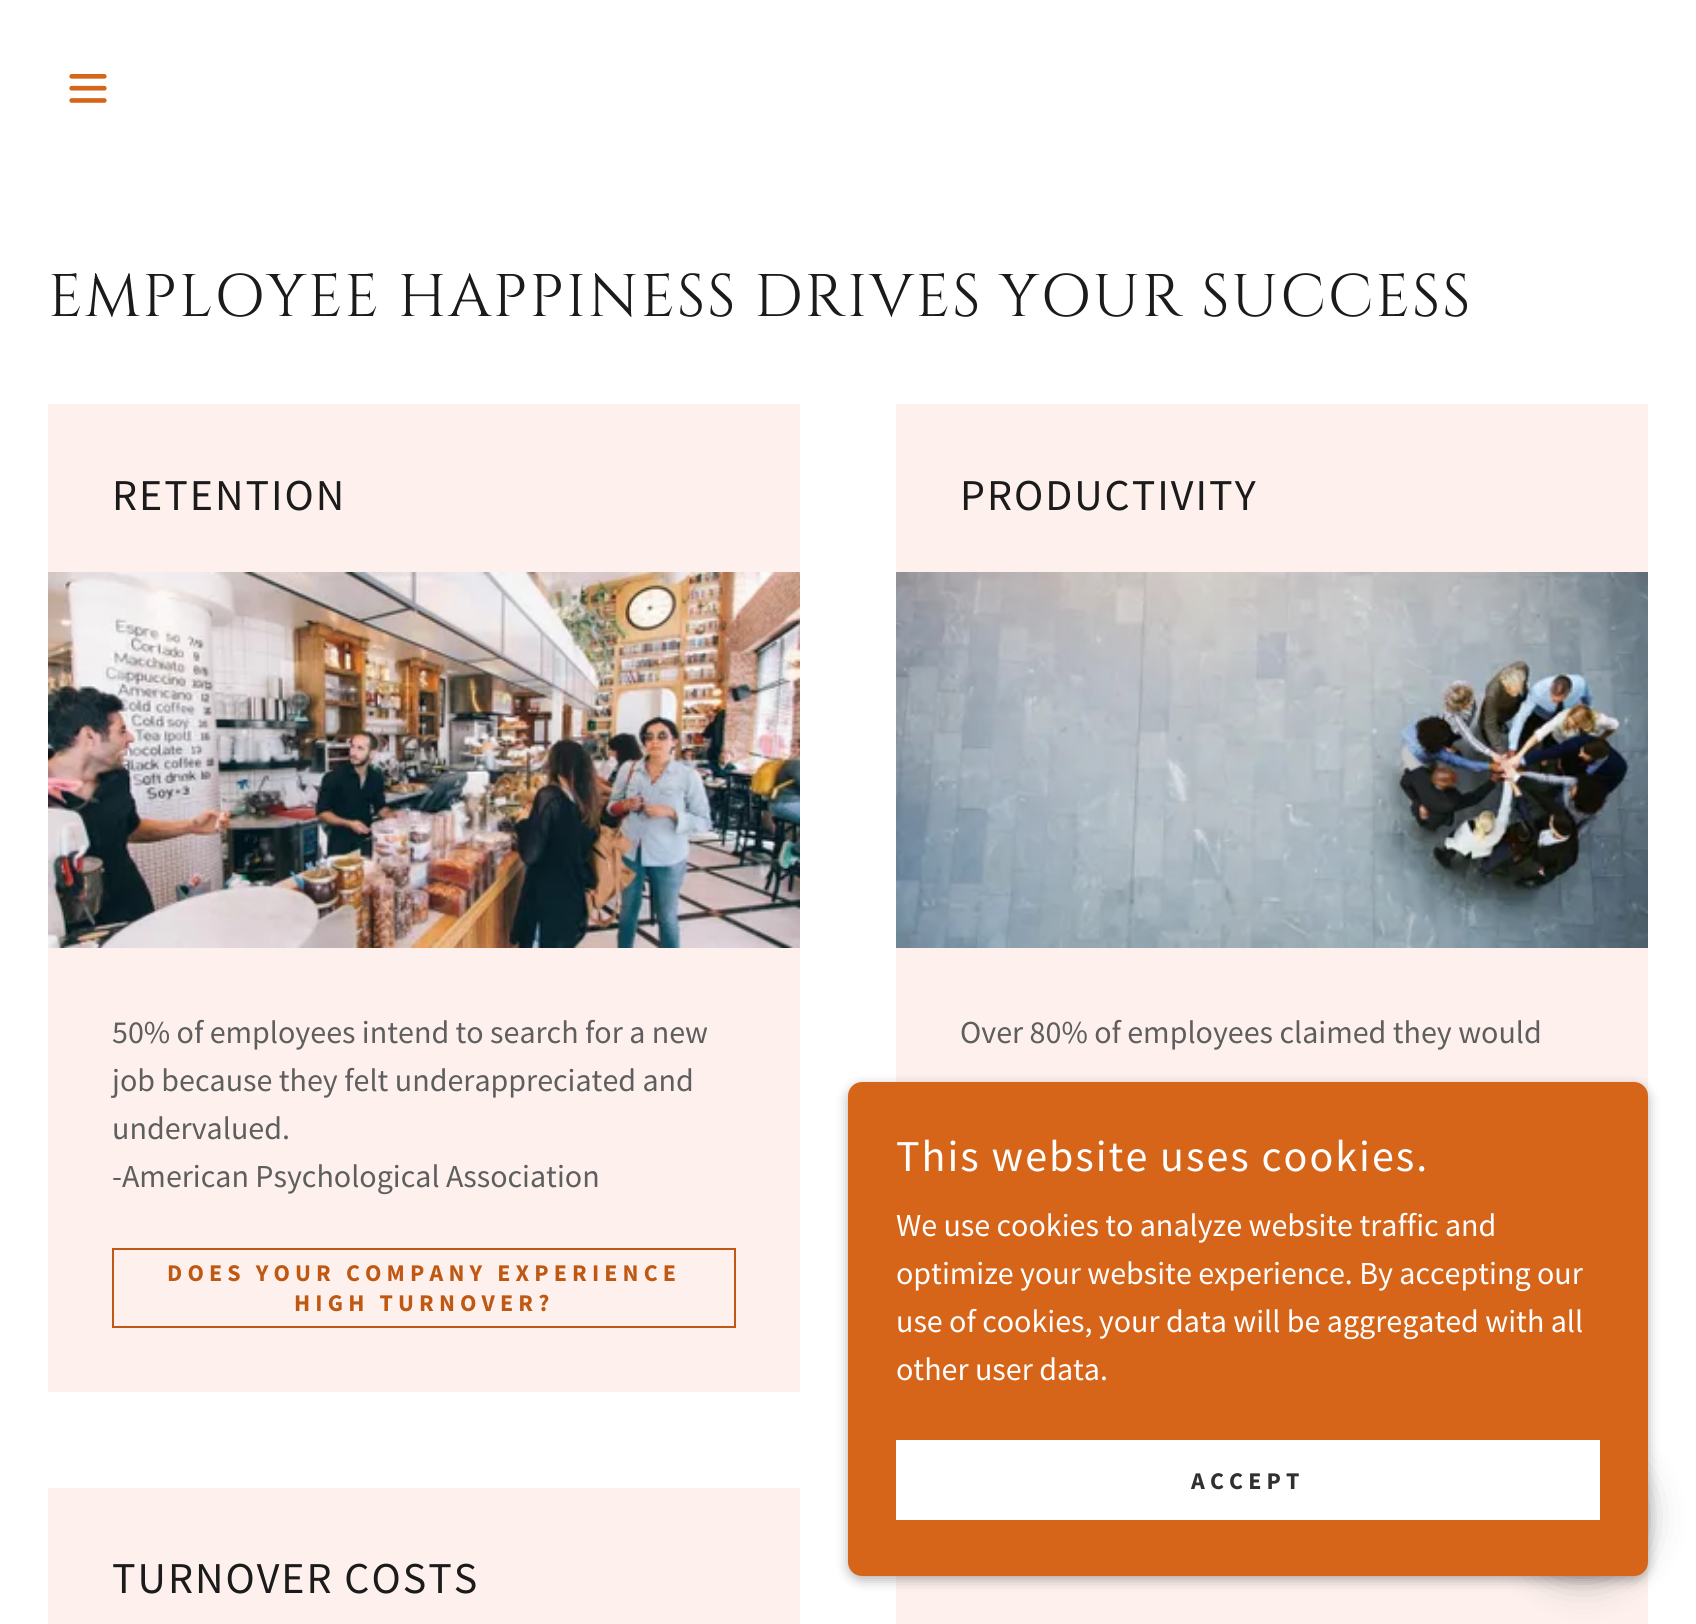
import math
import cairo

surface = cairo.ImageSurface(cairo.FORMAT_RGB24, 1696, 1624)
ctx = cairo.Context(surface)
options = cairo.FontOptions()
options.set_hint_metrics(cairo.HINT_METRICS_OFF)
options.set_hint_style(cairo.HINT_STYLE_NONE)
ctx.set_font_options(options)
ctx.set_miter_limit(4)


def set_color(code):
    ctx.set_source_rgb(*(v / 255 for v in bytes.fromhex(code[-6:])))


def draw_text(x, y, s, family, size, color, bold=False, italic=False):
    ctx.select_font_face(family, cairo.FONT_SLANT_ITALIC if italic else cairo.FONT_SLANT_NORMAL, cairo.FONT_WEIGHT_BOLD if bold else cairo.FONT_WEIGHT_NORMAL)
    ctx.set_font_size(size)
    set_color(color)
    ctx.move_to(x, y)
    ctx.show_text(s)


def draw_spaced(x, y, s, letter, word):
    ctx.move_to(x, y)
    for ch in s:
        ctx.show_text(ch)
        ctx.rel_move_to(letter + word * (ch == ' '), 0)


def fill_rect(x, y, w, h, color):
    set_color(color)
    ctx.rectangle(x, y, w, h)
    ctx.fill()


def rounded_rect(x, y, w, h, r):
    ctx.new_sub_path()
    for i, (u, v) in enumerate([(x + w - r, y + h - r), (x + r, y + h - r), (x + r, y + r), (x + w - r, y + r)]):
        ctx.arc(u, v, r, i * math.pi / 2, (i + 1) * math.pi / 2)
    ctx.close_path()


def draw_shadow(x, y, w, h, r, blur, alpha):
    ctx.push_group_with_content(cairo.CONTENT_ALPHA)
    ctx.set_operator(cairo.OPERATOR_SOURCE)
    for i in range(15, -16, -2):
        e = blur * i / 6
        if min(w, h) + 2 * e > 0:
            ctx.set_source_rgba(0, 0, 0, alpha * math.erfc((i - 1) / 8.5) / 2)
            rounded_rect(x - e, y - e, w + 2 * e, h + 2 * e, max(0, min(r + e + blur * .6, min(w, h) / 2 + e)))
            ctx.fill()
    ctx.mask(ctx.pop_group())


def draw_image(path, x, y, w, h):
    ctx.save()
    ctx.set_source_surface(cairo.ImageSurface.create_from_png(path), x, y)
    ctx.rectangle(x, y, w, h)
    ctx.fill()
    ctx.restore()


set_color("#ffffff")
ctx.paint()
draw_image("assets/img1.png", 69, 74, 38, 29)
ctx.select_font_face("Cinzel")
ctx.set_font_size(60)
set_color("#1b1b1b")
draw_spaced(48, 316, "EMPLOYEE HAPPINESS DRIVES YOUR SUCCESS", 1.85, 0)
fill_rect(48, 404, 752, 988, "#fef1ed")
ctx.select_font_face("Source Sans Pro")
ctx.set_font_size(44)
set_color("#1b1b1b")
draw_spaced(112, 510, "RETENTION", 2, 0)
draw_image("assets/img2.png", 48, 572, 752, 376)
draw_text(112, 1043, "50% of employees intend to search for a new", "Source Sans Pro", 32, "#5e5e5e")
draw_text(112, 1091, "job because they felt underappreciated and", "Source Sans Pro", 32, "#5e5e5e")
draw_text(112, 1139, "undervalued.", "Source Sans Pro", 32, "#5e5e5e")
draw_text(112, 1187, "-American Psychological Association", "Source Sans Pro", 32, "#5e5e5e")
ctx.rectangle(113, 1249, 622, 78)
set_color("#bf5813")
ctx.stroke()
ctx.select_font_face("Source Sans Pro", cairo.FONT_SLANT_NORMAL, cairo.FONT_WEIGHT_BOLD)
ctx.set_font_size(24)
draw_spaced(167, 1281, "DOES YOUR COMPANY EXPERIENCE", 5.15, 0)
draw_spaced(294, 1311, "HIGH TURNOVER?", 5.15, 0)
fill_rect(896, 404, 752, 692, "#fef1ed")
ctx.select_font_face("Source Sans Pro")
ctx.set_font_size(44)
set_color("#1b1b1b")
draw_spaced(960, 510, "PRODUCTIVITY", 2, 0)
draw_image("assets/img3.png", 896, 572, 752, 376)
draw_text(960, 1043, "Over 80% of employees claimed they would", "Source Sans Pro", 32, "#5e5e5e")
fill_rect(48, 1488, 752, 136, "#fef1ed")
ctx.set_font_size(44)
set_color("#1b1b1b")
draw_spaced(112, 1593, "TURNOVER COSTS", 2, 0)
fill_rect(896, 1562, 752, 62, "#fef1ed")
set_color("#000000")
draw_shadow(848, 1086, 800, 494, 14, 6, 0.3)
draw_shadow(1518, 1452, 130, 130, 65, 18, 0.25)
set_color("#d6651a")
rounded_rect(848, 1082, 800, 494, 14)
ctx.fill()
set_color("#ffffff")
draw_spaced(896, 1171, "This website uses cookies.", 2, 0)
draw_text(896, 1236, "We use cookies to analyze website traffic and", "Source Sans Pro", 32, "#ffffff")
draw_text(896, 1284, "optimize your website experience. By accepting our", "Source Sans Pro", 32, "#ffffff")
draw_text(896, 1332, "use of cookies, your data will be aggregated with all", "Source Sans Pro", 32, "#ffffff")
draw_text(896, 1380, "other user data.", "Source Sans Pro", 32, "#ffffff")
fill_rect(896, 1440, 704, 80, "#ffffff")
ctx.select_font_face("Source Sans Pro", cairo.FONT_SLANT_NORMAL, cairo.FONT_WEIGHT_BOLD)
ctx.set_font_size(24)
set_color("#303030")
draw_spaced(1191, 1489, "ACCEPT", 5.15, 0)
surface.write_to_png("output.png")
